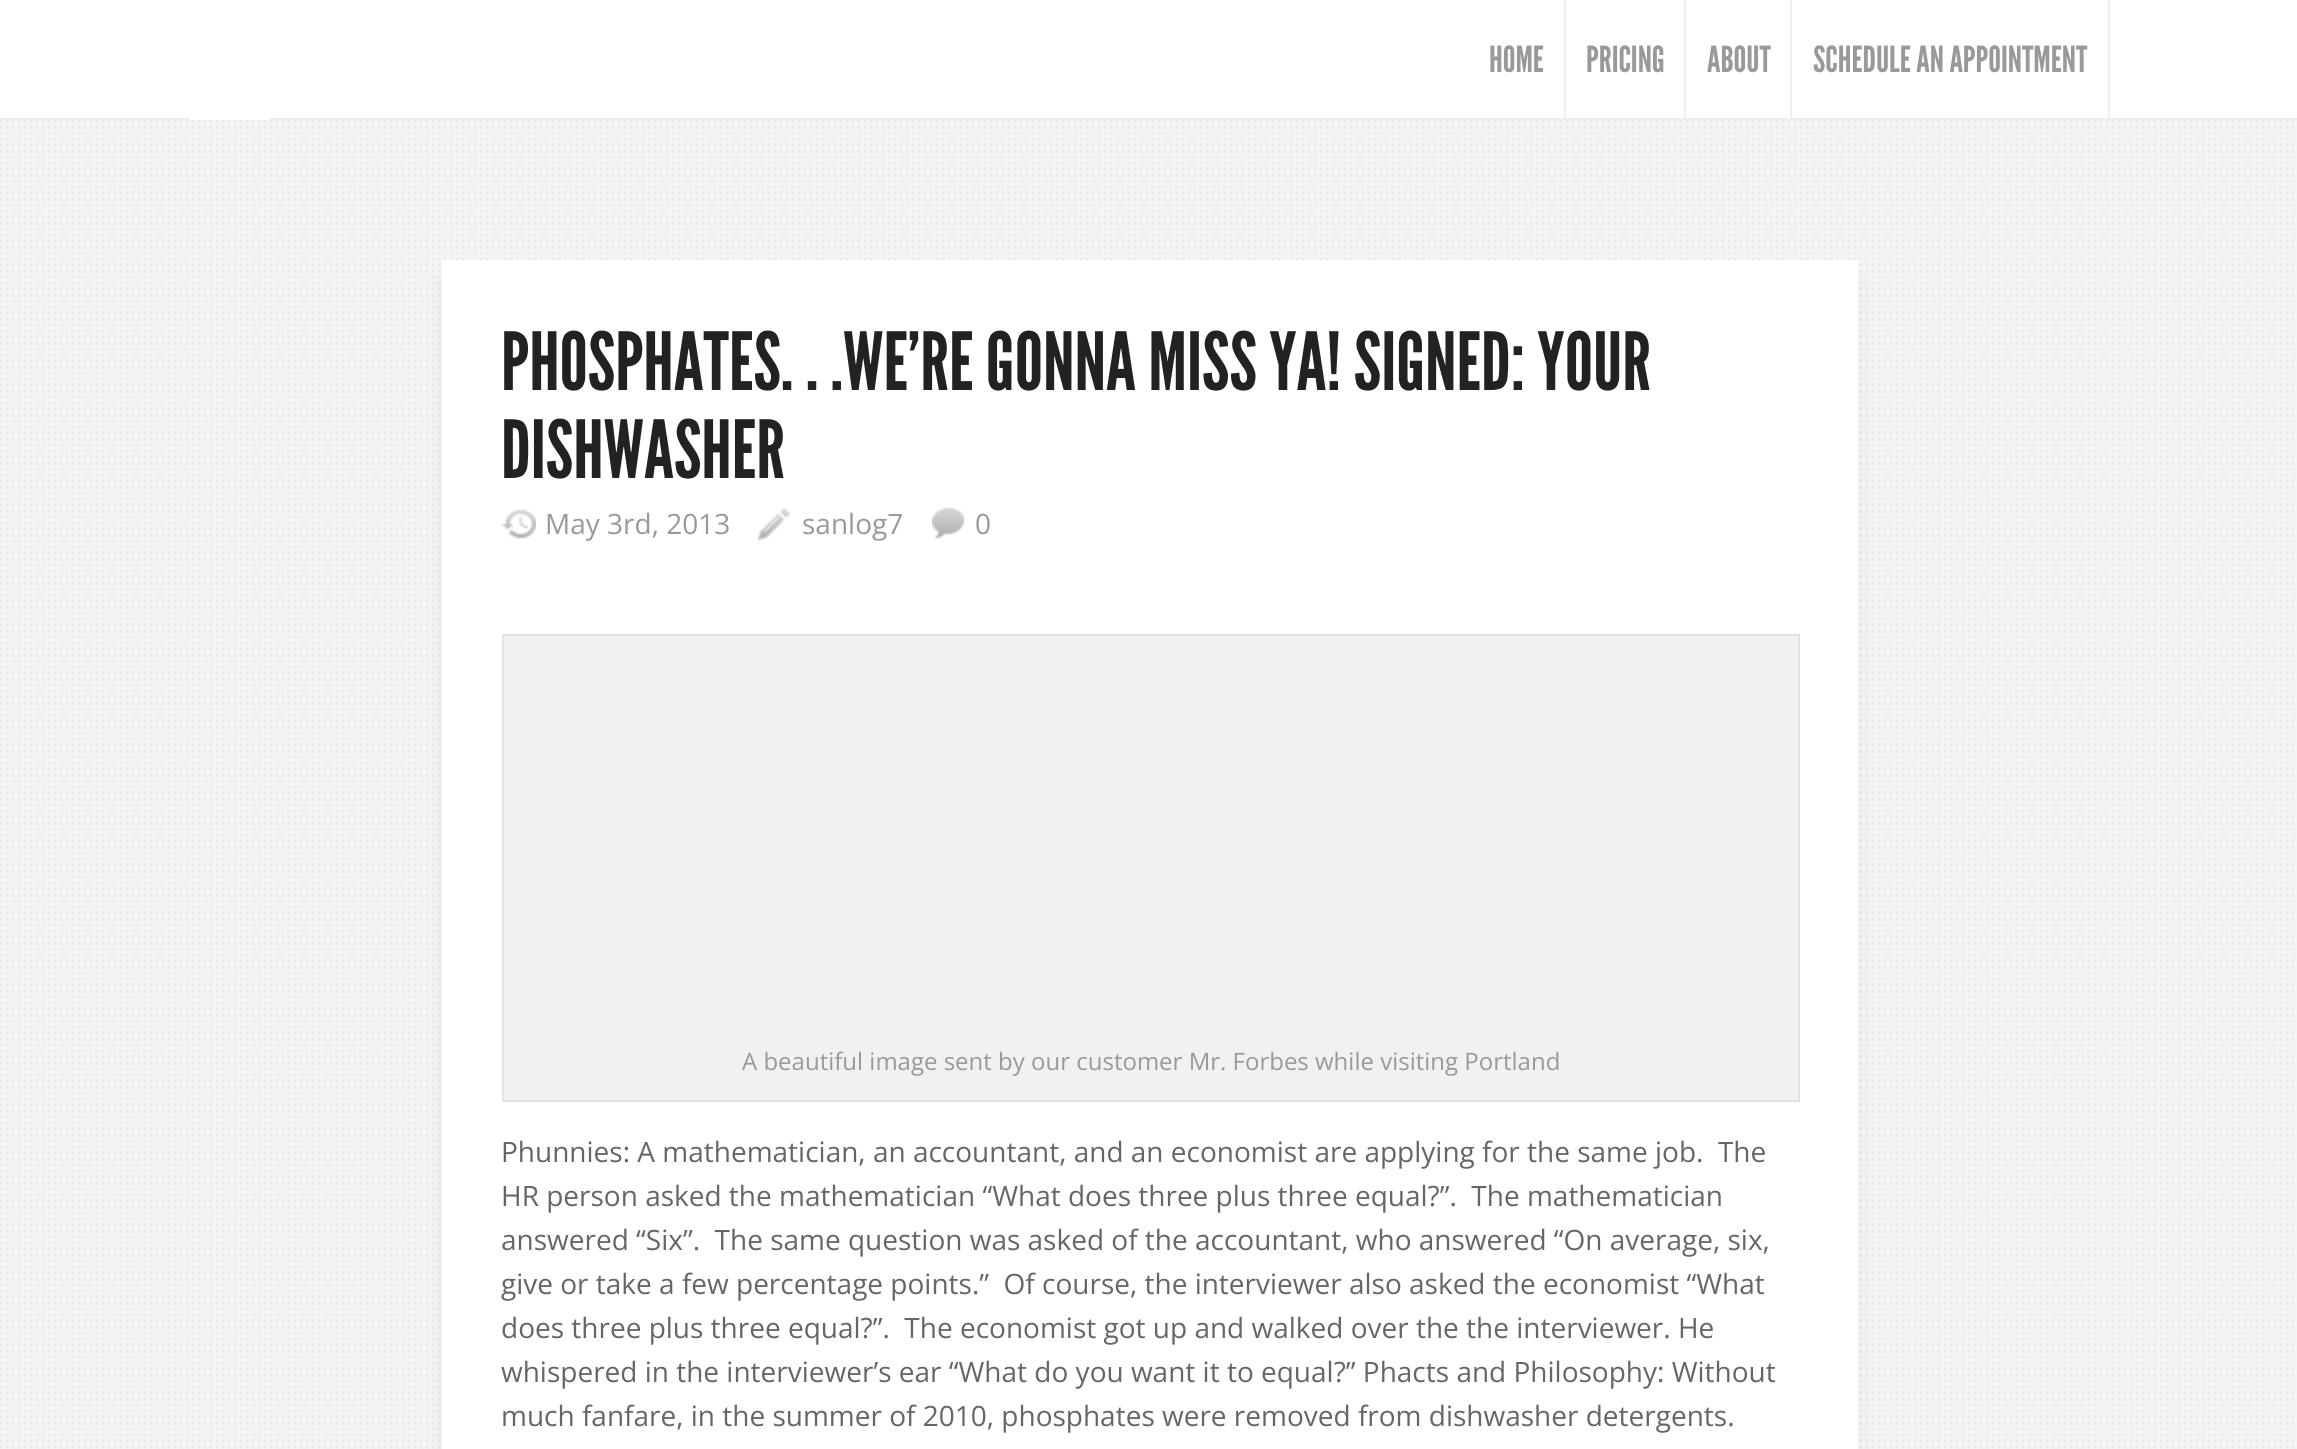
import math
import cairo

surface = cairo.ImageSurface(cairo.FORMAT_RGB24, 2297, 1449)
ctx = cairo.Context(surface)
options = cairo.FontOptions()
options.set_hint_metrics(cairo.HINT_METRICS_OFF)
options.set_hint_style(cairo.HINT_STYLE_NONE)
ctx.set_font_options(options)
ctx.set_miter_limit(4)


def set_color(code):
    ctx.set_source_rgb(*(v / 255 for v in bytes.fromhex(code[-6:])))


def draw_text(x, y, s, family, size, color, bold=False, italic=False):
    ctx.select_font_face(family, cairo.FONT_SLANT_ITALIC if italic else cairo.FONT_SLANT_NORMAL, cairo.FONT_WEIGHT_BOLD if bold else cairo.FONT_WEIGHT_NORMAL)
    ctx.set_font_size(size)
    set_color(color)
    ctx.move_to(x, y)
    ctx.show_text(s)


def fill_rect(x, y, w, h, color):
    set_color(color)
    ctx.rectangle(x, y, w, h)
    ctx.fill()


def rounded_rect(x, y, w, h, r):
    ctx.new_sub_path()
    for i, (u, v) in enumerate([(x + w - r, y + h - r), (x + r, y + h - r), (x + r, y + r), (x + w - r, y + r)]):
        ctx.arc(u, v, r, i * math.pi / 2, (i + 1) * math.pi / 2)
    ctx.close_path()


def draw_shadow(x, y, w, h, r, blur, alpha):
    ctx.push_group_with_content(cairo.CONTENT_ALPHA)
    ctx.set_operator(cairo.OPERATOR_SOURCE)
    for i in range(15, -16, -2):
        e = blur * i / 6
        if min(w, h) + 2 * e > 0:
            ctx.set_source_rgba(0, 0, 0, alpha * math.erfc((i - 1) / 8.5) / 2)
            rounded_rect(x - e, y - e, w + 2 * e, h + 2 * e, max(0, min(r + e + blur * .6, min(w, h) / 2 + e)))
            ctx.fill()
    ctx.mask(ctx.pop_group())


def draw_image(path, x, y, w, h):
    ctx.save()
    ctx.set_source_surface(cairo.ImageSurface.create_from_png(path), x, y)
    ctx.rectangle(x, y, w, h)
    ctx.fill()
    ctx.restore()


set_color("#ffffff")
ctx.paint()
draw_image("assets/img1.png", 0, 120, 2297, 1329)
fill_rect(0, 118, 2297, 2, "#eeeeee")
fill_rect(1564, 0, 2, 120, "#eeeeee")
draw_text(1489, 72, "HOME", "League Gothic", 36, "#999999")
fill_rect(1684, 0, 2, 120, "#eeeeee")
draw_text(1586, 72, "PRICING", "League Gothic", 36, "#999999")
fill_rect(1790, 0, 2, 120, "#eeeeee")
draw_text(1707, 72, "ABOUT", "League Gothic", 36, "#999999")
fill_rect(2108, 0, 2, 120, "#eeeeee")
draw_text(1813, 72, "SCHEDULE AN APPOINTMENT", "League Gothic", 36, "#999999")
fill_rect(190, 118, 80, 2, "#ffffff")
set_color("#000000")
draw_shadow(442, 280, 1416, 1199, 0, 10, 0.05)
fill_rect(442, 260, 1416, 1189, "#ffffff")
draw_text(501, 390, "PHOSPHATES. . .WE’RE GONNA MISS YA! SIGNED: YOUR", "League Gothic", 80, "#222222")
draw_text(501, 478, "DISHWASHER", "League Gothic", 80, "#222222")
draw_image("assets/img2.png", 502, 509, 34, 30)
draw_text(545, 534, "May 3rd, 2013", "Open Sans", 28, "#999999")
draw_image("assets/img3.png", 758, 507, 32, 34)
draw_text(802, 534, "sanlog7", "Open Sans", 28, "#999999")
draw_image("assets/img4.png", 932, 507, 32, 32)
draw_text(975, 534, "0", "Open Sans", 28, "#999999")
set_color("#f1f1f1")
ctx.rectangle(503, 635, 1296, 466)
ctx.fill_preserve()
set_color("#e2e2e2")
ctx.stroke()
draw_text(742, 1070, "A beautiful image sent by our customer Mr. Forbes while visiting Portland", "Open Sans", 24, "#999999")
draw_text(501, 1162, "Phunnies: A mathematician, an accountant, and an economist are applying for the same job.  The", "Open Sans", 28, "#666666")
draw_text(501, 1206, "HR person asked the mathematician “What does three plus three equal?”.  The mathematician", "Open Sans", 28, "#666666")
draw_text(501, 1250, "answered “Six”.  The same question was asked of the accountant, who answered “On average, six,", "Open Sans", 28, "#666666")
draw_text(501, 1294, "give or take a few percentage points.”  Of course, the interviewer also asked the economist “What", "Open Sans", 28, "#666666")
draw_text(501, 1338, "does three plus three equal?”.  The economist got up and walked over the the interviewer. He", "Open Sans", 28, "#666666")
draw_text(501, 1382, "whispered in the interviewer’s ear “What do you want it to equal?” Phacts and Philosophy: Without", "Open Sans", 28, "#666666")
draw_text(501, 1426, "much fanfare, in the summer of 2010, phosphates were removed from dishwasher detergents.", "Open Sans", 28, "#666666")
surface.write_to_png("output.png")
